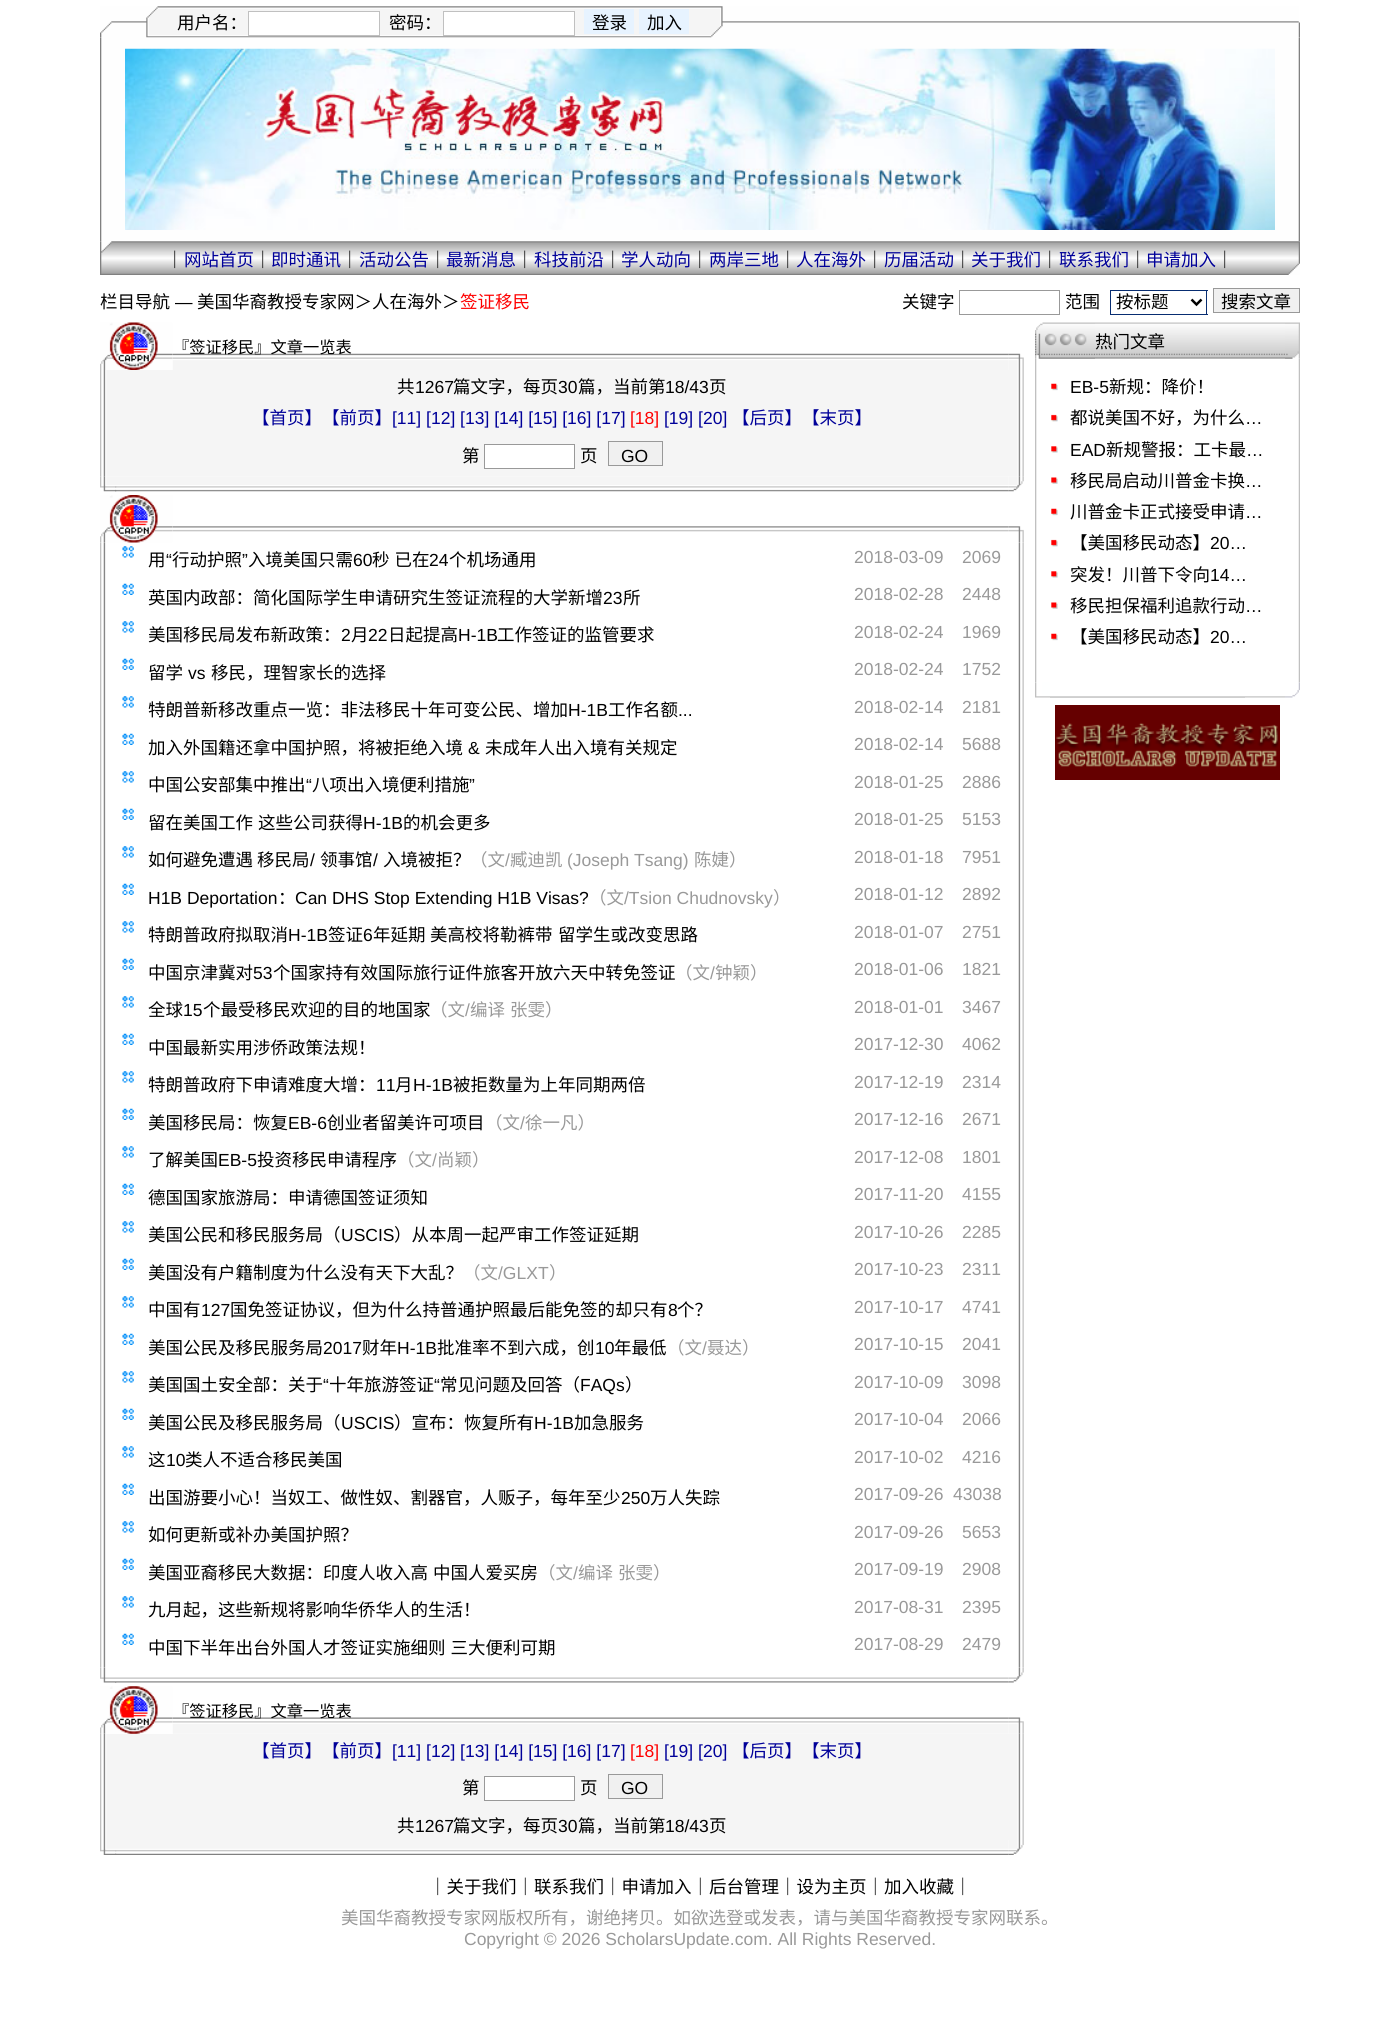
import math
import cairo

surface = cairo.ImageSurface(cairo.FORMAT_RGB24, 1399, 2020)
ctx = cairo.Context(surface)
options = cairo.FontOptions()
options.set_hint_metrics(cairo.HINT_METRICS_OFF)
options.set_hint_style(cairo.HINT_STYLE_NONE)
ctx.set_font_options(options)
ctx.set_miter_limit(4)


def set_color(code):
    ctx.set_source_rgb(*(v / 255 for v in bytes.fromhex(code[-6:])))


def draw_text(x, y, s, family, size, color, bold=False, italic=False):
    ctx.select_font_face(family, cairo.FONT_SLANT_ITALIC if italic else cairo.FONT_SLANT_NORMAL, cairo.FONT_WEIGHT_BOLD if bold else cairo.FONT_WEIGHT_NORMAL)
    ctx.set_font_size(size)
    set_color(color)
    ctx.move_to(x, y)
    ctx.show_text(s)


def draw_spaced(x, y, s, letter, word):
    ctx.move_to(x, y)
    for ch in s:
        ctx.show_text(ch)
        ctx.rel_move_to(letter + word * (ch == ' '), 0)


def fill_rect(x, y, w, h, color):
    set_color(color)
    ctx.rectangle(x, y, w, h)
    ctx.fill()


def draw_image(path, x, y, w, h):
    ctx.save()
    ctx.set_source_surface(cairo.ImageSurface.create_from_png(path), x, y)
    ctx.rectangle(x, y, w, h)
    ctx.fill()
    ctx.restore()


set_color("#ffffff")
ctx.paint()
draw_image("assets/img1.png", 100, 6, 1200, 32)
draw_text(177, 29, "用户名：", "Noto Sans CJK SC", 17.5, "#000000")
set_color("#ffffff")
ctx.rectangle(248.5, 11.5, 131, 24)
ctx.fill_preserve()
set_color("#c0c0c0")
ctx.set_line_width(1)
ctx.stroke()
draw_text(389, 29, "密码：", "Noto Sans CJK SC", 17.5, "#000000")
set_color("#ffffff")
ctx.rectangle(443.5, 11.5, 131, 24)
ctx.fill_preserve()
set_color("#c0c0c0")
ctx.stroke()
fill_rect(584, 9, 50, 25, "#e7f3ff")
draw_text(592, 29, "登录", "Noto Sans CJK SC", 17.5, "#000000")
fill_rect(639, 9, 50, 25, "#e7f3ff")
draw_text(647, 29, "加入", "Noto Sans CJK SC", 17.5, "#000000")
draw_image("assets/img2.png", 100, 37, 1200, 205)
draw_image("assets/img3.png", 125, 48, 1150, 182)
draw_image("assets/img4.png", 100, 241, 1200, 34)
draw_text(166, 266, "｜", "Noto Sans CJK SC", 17.5, "#000000")
draw_text(184, 266, "网站首页", "Noto Sans CJK SC", 17.5, "#000099")
draw_text(254, 266, "｜", "Noto Sans CJK SC", 17.5, "#000000")
draw_text(271, 266, "即时通讯", "Noto Sans CJK SC", 17.5, "#000099")
draw_text(341, 266, "｜", "Noto Sans CJK SC", 17.5, "#000000")
draw_text(359, 266, "活动公告", "Noto Sans CJK SC", 17.5, "#000099")
draw_text(429, 266, "｜", "Noto Sans CJK SC", 17.5, "#000000")
draw_text(446, 266, "最新消息", "Noto Sans CJK SC", 17.5, "#000099")
draw_text(516, 266, "｜", "Noto Sans CJK SC", 17.5, "#000000")
draw_text(534, 266, "科技前沿", "Noto Sans CJK SC", 17.5, "#000099")
draw_text(604, 266, "｜", "Noto Sans CJK SC", 17.5, "#000000")
draw_text(621, 266, "学人动向", "Noto Sans CJK SC", 17.5, "#000099")
draw_text(691, 266, "｜", "Noto Sans CJK SC", 17.5, "#000000")
draw_text(709, 266, "两岸三地", "Noto Sans CJK SC", 17.5, "#000099")
draw_text(779, 266, "｜", "Noto Sans CJK SC", 17.5, "#000000")
draw_text(796, 266, "人在海外", "Noto Sans CJK SC", 17.5, "#000099")
draw_text(866, 266, "｜", "Noto Sans CJK SC", 17.5, "#000000")
draw_text(884, 266, "历届活动", "Noto Sans CJK SC", 17.5, "#000099")
draw_text(954, 266, "｜", "Noto Sans CJK SC", 17.5, "#000000")
draw_text(971, 266, "关于我们", "Noto Sans CJK SC", 17.5, "#000099")
draw_text(1041, 266, "｜", "Noto Sans CJK SC", 17.5, "#000000")
draw_text(1059, 266, "联系我们", "Noto Sans CJK SC", 17.5, "#000099")
draw_text(1129, 266, "｜", "Noto Sans CJK SC", 17.5, "#000000")
draw_text(1146, 266, "申请加入", "Noto Sans CJK SC", 17.5, "#000099")
draw_text(1216, 266, "｜", "Noto Sans CJK SC", 17.5, "#000000")
draw_text(100, 308, "栏目导航", "Noto Sans CJK SC", 17.5, "#000000")
draw_text(175, 308, "—", "Liberation Sans", 17.5, "#000000")
draw_text(197, 308, "美国华裔教授专家网＞人在海外＞", "Noto Sans CJK SC", 17.5, "#000000")
draw_text(460, 308, "签证移民", "Noto Sans CJK SC", 17.5, "#ff0000")
draw_text(902, 308, "关键字", "Noto Sans CJK SC", 17.5, "#000000")
ctx.rectangle(959.5, 290.5, 100, 24)
set_color("#999999")
ctx.stroke()
draw_text(1065, 308, "范围", "Noto Sans CJK SC", 17.5, "#000000")
fill_rect(1110, 290, 98, 1, "#082d71")
fill_rect(1206, 290, 1, 25, "#082d71")
fill_rect(1110, 314, 98, 1, "#082d71")
fill_rect(1110, 290, 1, 25, "#082d72")
ctx.new_path()
ctx.move_to(1191.5, 299.5)
ctx.line_to(1196.5, 304.5)
ctx.line_to(1201.5, 299.5)
set_color("#000000")
ctx.set_line_width(2.5)
ctx.stroke()
draw_text(1116, 308, "按标题", "Noto Sans CJK SC", 17.5, "#000000")
set_color("#f0f0f0")
ctx.rectangle(1213.5, 288.5, 86, 24)
ctx.fill_preserve()
set_color("#999999")
ctx.set_line_width(1)
ctx.stroke()
draw_text(1221, 308, "搜索文章", "Noto Sans CJK SC", 17.5, "#000000")
draw_image("assets/img6.png", 172, 353, 837, 17)
draw_image("assets/img5.png", 100, 322, 73, 48)
draw_text(173, 353, "『签证移民』文章一览表", "Noto Sans CJK SC", 16.25, "#000000")
draw_image("assets/img7.png", 1008, 353, 16, 17)
draw_image("assets/img8.png", 100, 370, 15, 107)
fill_rect(115, 370, 894, 106, "#f5f5f5")
draw_text(397, 393, "共", "Noto Sans CJK SC", 17.5, "#000000")
draw_text(415, 393, "1267", "Liberation Sans", 17.5, "#000000")
draw_text(453, 393, "篇文字，每页", "Noto Sans CJK SC", 17.5, "#000000")
draw_text(558, 393, "30", "Liberation Sans", 17.5, "#000000")
draw_text(578, 393, "篇，当前第", "Noto Sans CJK SC", 17.5, "#000000")
draw_text(665, 393, "18/43", "Liberation Sans", 17.5, "#000000")
draw_text(709, 393, "页", "Noto Sans CJK SC", 17.5, "#000000")
draw_text(252, 424, "【首页】【前页】", "Noto Sans CJK SC", 17.5, "#000099")
draw_text(392, 424, "[11] [12] [13] [14] [15] [16] [17]", "Liberation Sans", 17.5, "#000099")
draw_text(630, 424, "[18]", "Liberation Sans", 17.5, "#ff0000")
draw_text(664, 424, "[19] [20]", "Liberation Sans", 17.5, "#000099")
draw_text(732, 424, "【后页】【末页】", "Noto Sans CJK SC", 17.5, "#000099")
draw_text(462, 462, "第", "Noto Sans CJK SC", 17.5, "#000000")
set_color("#ffffff")
ctx.rectangle(484.5, 444.5, 90, 24)
ctx.fill_preserve()
set_color("#999999")
ctx.stroke()
draw_text(580, 462, "页", "Noto Sans CJK SC", 17.5, "#000000")
set_color("#f0f0f0")
ctx.rectangle(608.5, 441.5, 54, 24)
ctx.fill_preserve()
set_color("#999999")
ctx.stroke()
draw_text(621, 462, "GO", "Liberation Sans", 17.5, "#000000")
draw_image("assets/img9.png", 1009, 370, 15, 107)
draw_image("assets/img10.png", 100, 476, 15, 16)
draw_image("assets/img11.png", 115, 476, 894, 16)
draw_image("assets/img12.png", 115, 486, 2, 6)
draw_image("assets/img13.png", 1008, 476, 16, 16)
draw_image("assets/img15.png", 172, 526, 837, 6)
draw_image("assets/img17.png", 100, 542, 6, 1126)
draw_image("assets/img14.png", 100, 495, 73, 48)
draw_image("assets/img20.png", 1018, 542, 6, 1126)
draw_image("assets/img16.png", 1008, 526, 16, 17)
draw_image("assets/img18.png", 122, 546, 12, 12)
draw_text(148, 566, "用", "Noto Sans CJK SC", 17.5, "#000000")
draw_text(166, 566, "“", "Liberation Sans", 17.5, "#000000")
draw_text(172, 566, "行动护照", "Noto Sans CJK SC", 17.5, "#000000")
draw_text(242, 566, "”", "Liberation Sans", 17.5, "#000000")
draw_text(248, 566, "入境美国只需", "Noto Sans CJK SC", 17.5, "#000000")
draw_text(353, 566, "60", "Liberation Sans", 17.5, "#000000")
ctx.select_font_face("Noto Sans CJK SC")
draw_spaced(372, 566, "秒 已在", 0, 1)
draw_text(429, 566, "24", "Liberation Sans", 17.5, "#000000")
draw_text(449, 566, "个机场通用", "Noto Sans CJK SC", 17.5, "#000000")
draw_text(854, 563, "2018-03-09", "Liberation Sans", 17.5, "#999999")
draw_text(962, 563, "2069", "Liberation Sans", 17.5, "#999999")
draw_image("assets/img19.png", 122, 583, 12, 12)
draw_text(148, 604, "英国内政部：简化国际学生申请研究生签证流程的大学新增", "Noto Sans CJK SC", 17.5, "#000000")
draw_text(603, 604, "23", "Liberation Sans", 17.5, "#000000")
draw_text(623, 604, "所", "Noto Sans CJK SC", 17.5, "#000000")
draw_text(854, 600, "2018-02-28", "Liberation Sans", 17.5, "#999999")
draw_text(962, 600, "2448", "Liberation Sans", 17.5, "#999999")
draw_image("assets/img18.png", 122, 621, 12, 12)
draw_text(148, 641, "美国移民局发布新政策：", "Noto Sans CJK SC", 17.5, "#000000")
draw_text(341, 641, "2", "Liberation Sans", 17.5, "#000000")
draw_text(351, 641, "月", "Noto Sans CJK SC", 17.5, "#000000")
draw_text(368, 641, "22", "Liberation Sans", 17.5, "#000000")
draw_text(388, 641, "日起提高", "Noto Sans CJK SC", 17.5, "#000000")
draw_text(458, 641, "H-1B", "Liberation Sans", 17.5, "#000000")
draw_text(497, 641, "工作签证的监管要求", "Noto Sans CJK SC", 17.5, "#000000")
draw_text(854, 638, "2018-02-24", "Liberation Sans", 17.5, "#999999")
draw_text(962, 638, "1969", "Liberation Sans", 17.5, "#999999")
draw_image("assets/img19.png", 122, 658, 12, 12)
draw_text(148, 679, "留学", "Noto Sans CJK SC", 17.5, "#000000")
draw_text(188, 679, "vs", "Liberation Sans", 17.5, "#000000")
draw_text(211, 679, "移民，理智家长的选择", "Noto Sans CJK SC", 17.5, "#000000")
draw_text(854, 675, "2018-02-24", "Liberation Sans", 17.5, "#999999")
draw_text(962, 675, "1752", "Liberation Sans", 17.5, "#999999")
draw_image("assets/img18.png", 122, 696, 12, 12)
draw_text(148, 716, "特朗普新移改重点一览：非法移民十年可变公民、增加", "Noto Sans CJK SC", 17.5, "#000000")
draw_text(568, 716, "H-1B", "Liberation Sans", 17.5, "#000000")
draw_text(608, 716, "工作名额", "Noto Sans CJK SC", 17.5, "#000000")
draw_text(678, 716, "...", "Liberation Sans", 17.5, "#000000")
draw_text(854, 713, "2018-02-14", "Liberation Sans", 17.5, "#999999")
draw_text(962, 713, "2181", "Liberation Sans", 17.5, "#999999")
draw_image("assets/img19.png", 122, 733, 12, 12)
draw_text(148, 754, "加入外国籍还拿中国护照，将被拒绝入境", "Noto Sans CJK SC", 17.5, "#000000")
draw_text(468, 754, "&", "Liberation Sans", 17.5, "#000000")
draw_text(485, 754, "未成年人出入境有关规定", "Noto Sans CJK SC", 17.5, "#000000")
draw_text(854, 750, "2018-02-14", "Liberation Sans", 17.5, "#999999")
draw_text(962, 750, "5688", "Liberation Sans", 17.5, "#999999")
draw_image("assets/img18.png", 122, 771, 12, 12)
draw_text(148, 791, "中国公安部集中推出", "Noto Sans CJK SC", 17.5, "#000000")
draw_text(306, 791, "“", "Liberation Sans", 17.5, "#000000")
draw_text(312, 791, "八项出入境便利措施", "Noto Sans CJK SC", 17.5, "#000000")
draw_text(469, 791, "”", "Liberation Sans", 17.5, "#000000")
draw_text(854, 788, "2018-01-25", "Liberation Sans", 17.5, "#999999")
draw_text(962, 788, "2886", "Liberation Sans", 17.5, "#999999")
draw_image("assets/img19.png", 122, 808, 12, 12)
ctx.select_font_face("Noto Sans CJK SC")
set_color("#000000")
draw_spaced(148, 829, "留在美国工作 这些公司获得", 0, 1)
draw_text(363, 829, "H-1B", "Liberation Sans", 17.5, "#000000")
draw_text(403, 829, "的机会更多", "Noto Sans CJK SC", 17.5, "#000000")
draw_text(854, 825, "2018-01-25", "Liberation Sans", 17.5, "#999999")
draw_text(962, 825, "5153", "Liberation Sans", 17.5, "#999999")
draw_image("assets/img18.png", 122, 846, 12, 12)
draw_text(148, 866, "如何避免遭遇 移民局", "Noto Sans CJK SC", 17.5, "#000000")
draw_text(310, 866, "/", "Liberation Sans", 17.5, "#000000")
draw_text(320, 866, "领事馆", "Noto Sans CJK SC", 17.5, "#000000")
draw_text(373, 866, "/", "Liberation Sans", 17.5, "#000000")
draw_text(383, 866, "入境被拒？", "Noto Sans CJK SC", 17.5, "#000000")
draw_text(470, 866, "（文", "Noto Sans CJK SC", 17.5, "#999999")
draw_text(505, 866, "/", "Liberation Sans", 17.5, "#999999")
draw_text(510, 866, "臧迪凯", "Noto Sans CJK SC", 17.5, "#999999")
draw_text(567, 866, "(Joseph Tsang)", "Liberation Sans", 17.5, "#999999")
draw_text(694, 866, "陈婕）", "Noto Sans CJK SC", 17.5, "#999999")
draw_text(854, 863, "2018-01-18", "Liberation Sans", 17.5, "#999999")
draw_text(962, 863, "7951", "Liberation Sans", 17.5, "#999999")
draw_image("assets/img19.png", 122, 883, 12, 12)
draw_text(148, 904, "H1B Deportation", "Liberation Sans", 17.5, "#000000")
draw_text(278, 904, "：", "Noto Sans CJK SC", 17.5, "#000000")
draw_text(295, 904, "Can DHS Stop Extending H1B Visas?", "Liberation Sans", 17.5, "#000000")
draw_text(589, 904, "（文", "Noto Sans CJK SC", 17.5, "#999999")
draw_text(624, 904, "/Tsion Chudnovsky", "Liberation Sans", 17.5, "#999999")
draw_text(773, 904, "）", "Noto Sans CJK SC", 17.5, "#999999")
draw_text(854, 900, "2018-01-12", "Liberation Sans", 17.5, "#999999")
draw_text(962, 900, "2892", "Liberation Sans", 17.5, "#999999")
draw_image("assets/img18.png", 122, 921, 12, 12)
draw_text(148, 941, "特朗普政府拟取消", "Noto Sans CJK SC", 17.5, "#000000")
draw_text(288, 941, "H-1B", "Liberation Sans", 17.5, "#000000")
draw_text(328, 941, "签证", "Noto Sans CJK SC", 17.5, "#000000")
draw_text(363, 941, "6", "Liberation Sans", 17.5, "#000000")
draw_text(373, 941, "年延期", "Noto Sans CJK SC", 17.5, "#000000")
draw_text(430, 941, "美高校将勒裤带", "Noto Sans CJK SC", 17.5, "#000000")
draw_text(558, 941, "留学生或改变思路", "Noto Sans CJK SC", 17.5, "#000000")
draw_text(854, 938, "2018-01-07", "Liberation Sans", 17.5, "#999999")
draw_text(962, 938, "2751", "Liberation Sans", 17.5, "#999999")
draw_image("assets/img19.png", 122, 958, 12, 12)
draw_text(148, 979, "中国京津冀对", "Noto Sans CJK SC", 17.5, "#000000")
draw_text(253, 979, "53", "Liberation Sans", 17.5, "#000000")
draw_text(273, 979, "个国家持有效国际旅行证件旅客开放六天中转免签证", "Noto Sans CJK SC", 17.5, "#000000")
draw_text(675, 979, "（文", "Noto Sans CJK SC", 17.5, "#999999")
draw_text(710, 979, "/", "Liberation Sans", 17.5, "#999999")
draw_text(715, 979, "钟颖）", "Noto Sans CJK SC", 17.5, "#999999")
draw_text(854, 975, "2018-01-06", "Liberation Sans", 17.5, "#999999")
draw_text(962, 975, "1821", "Liberation Sans", 17.5, "#999999")
draw_image("assets/img18.png", 122, 996, 12, 12)
draw_text(148, 1016, "全球", "Noto Sans CJK SC", 17.5, "#000000")
draw_text(183, 1016, "15", "Liberation Sans", 17.5, "#000000")
draw_text(203, 1016, "个最受移民欢迎的目的地国家", "Noto Sans CJK SC", 17.5, "#000000")
draw_text(430, 1016, "（文", "Noto Sans CJK SC", 17.5, "#999999")
draw_text(465, 1016, "/", "Liberation Sans", 17.5, "#999999")
ctx.select_font_face("Noto Sans CJK SC")
draw_spaced(470, 1016, "编译 张雯）", 0, 1)
draw_text(854, 1013, "2018-01-01", "Liberation Sans", 17.5, "#999999")
draw_text(962, 1013, "3467", "Liberation Sans", 17.5, "#999999")
draw_image("assets/img19.png", 122, 1033, 12, 12)
draw_text(148, 1054, "中国最新实用涉侨政策法规！", "Noto Sans CJK SC", 17.5, "#000000")
draw_text(854, 1050, "2017-12-30", "Liberation Sans", 17.5, "#999999")
draw_text(962, 1050, "4062", "Liberation Sans", 17.5, "#999999")
draw_image("assets/img18.png", 122, 1071, 12, 12)
draw_text(148, 1091, "特朗普政府下申请难度大增：", "Noto Sans CJK SC", 17.5, "#000000")
draw_text(376, 1091, "11", "Liberation Sans", 17.5, "#000000")
draw_text(395, 1091, "月", "Noto Sans CJK SC", 17.5, "#000000")
draw_text(413, 1091, "H-1B", "Liberation Sans", 17.5, "#000000")
draw_text(453, 1091, "被拒数量为上年同期两倍", "Noto Sans CJK SC", 17.5, "#000000")
draw_text(854, 1088, "2017-12-19", "Liberation Sans", 17.5, "#999999")
draw_text(962, 1088, "2314", "Liberation Sans", 17.5, "#999999")
draw_image("assets/img19.png", 122, 1108, 12, 12)
draw_text(148, 1129, "美国移民局：恢复", "Noto Sans CJK SC", 17.5, "#000000")
draw_text(288, 1129, "EB-6", "Liberation Sans", 17.5, "#000000")
draw_text(327, 1129, "创业者留美许可项目", "Noto Sans CJK SC", 17.5, "#000000")
draw_text(485, 1129, "（文", "Noto Sans CJK SC", 17.5, "#999999")
draw_text(520, 1129, "/", "Liberation Sans", 17.5, "#999999")
draw_text(525, 1129, "徐一凡）", "Noto Sans CJK SC", 17.5, "#999999")
draw_text(854, 1125, "2017-12-16", "Liberation Sans", 17.5, "#999999")
draw_text(962, 1125, "2671", "Liberation Sans", 17.5, "#999999")
draw_image("assets/img18.png", 122, 1146, 12, 12)
draw_text(148, 1166, "了解美国", "Noto Sans CJK SC", 17.5, "#000000")
draw_text(218, 1166, "EB-5", "Liberation Sans", 17.5, "#000000")
draw_text(257, 1166, "投资移民申请程序", "Noto Sans CJK SC", 17.5, "#000000")
draw_text(397, 1166, "（文", "Noto Sans CJK SC", 17.5, "#999999")
draw_text(432, 1166, "/", "Liberation Sans", 17.5, "#999999")
draw_text(437, 1166, "尚颖）", "Noto Sans CJK SC", 17.5, "#999999")
draw_text(854, 1163, "2017-12-08", "Liberation Sans", 17.5, "#999999")
draw_text(962, 1163, "1801", "Liberation Sans", 17.5, "#999999")
draw_image("assets/img19.png", 122, 1183, 12, 12)
draw_text(148, 1204, "德国国家旅游局：申请德国签证须知", "Noto Sans CJK SC", 17.5, "#000000")
draw_text(854, 1200, "2017-11-20", "Liberation Sans", 17.5, "#999999")
draw_text(962, 1200, "4155", "Liberation Sans", 17.5, "#999999")
draw_image("assets/img18.png", 122, 1221, 12, 12)
draw_text(148, 1241, "美国公民和移民服务局（", "Noto Sans CJK SC", 17.5, "#000000")
draw_text(341, 1241, "USCIS", "Liberation Sans", 17.5, "#000000")
draw_text(394, 1241, "）从本周一起严审工作签证延期", "Noto Sans CJK SC", 17.5, "#000000")
draw_text(854, 1238, "2017-10-26", "Liberation Sans", 17.5, "#999999")
draw_text(962, 1238, "2285", "Liberation Sans", 17.5, "#999999")
draw_image("assets/img19.png", 122, 1258, 12, 12)
draw_text(148, 1279, "美国没有户籍制度为什么没有天下大乱？", "Noto Sans CJK SC", 17.5, "#000000")
draw_text(463, 1279, "（文", "Noto Sans CJK SC", 17.5, "#999999")
draw_text(498, 1279, "/GLXT", "Liberation Sans", 17.5, "#999999")
draw_text(549, 1279, "）", "Noto Sans CJK SC", 17.5, "#999999")
draw_text(854, 1275, "2017-10-23", "Liberation Sans", 17.5, "#999999")
draw_text(962, 1275, "2311", "Liberation Sans", 17.5, "#999999")
draw_image("assets/img18.png", 122, 1296, 12, 12)
draw_text(148, 1316, "中国有", "Noto Sans CJK SC", 17.5, "#000000")
draw_text(201, 1316, "127", "Liberation Sans", 17.5, "#000000")
draw_text(230, 1316, "国免签证协议，但为什么持普通护照最后能免签的却只有", "Noto Sans CJK SC", 17.5, "#000000")
draw_text(668, 1316, "8", "Liberation Sans", 17.5, "#000000")
draw_text(677, 1316, "个？", "Noto Sans CJK SC", 17.5, "#000000")
draw_text(854, 1313, "2017-10-17", "Liberation Sans", 17.5, "#999999")
draw_text(962, 1313, "4741", "Liberation Sans", 17.5, "#999999")
draw_image("assets/img19.png", 122, 1333, 12, 12)
draw_text(148, 1354, "美国公民及移民服务局", "Noto Sans CJK SC", 17.5, "#000000")
draw_text(323, 1354, "2017", "Liberation Sans", 17.5, "#000000")
draw_text(362, 1354, "财年", "Noto Sans CJK SC", 17.5, "#000000")
draw_text(397, 1354, "H-1B", "Liberation Sans", 17.5, "#000000")
draw_text(437, 1354, "批准率不到六成，创", "Noto Sans CJK SC", 17.5, "#000000")
draw_text(595, 1354, "10", "Liberation Sans", 17.5, "#000000")
draw_text(614, 1354, "年最低", "Noto Sans CJK SC", 17.5, "#000000")
draw_text(667, 1354, "（文", "Noto Sans CJK SC", 17.5, "#999999")
draw_text(702, 1354, "/", "Liberation Sans", 17.5, "#999999")
draw_text(707, 1354, "聂达）", "Noto Sans CJK SC", 17.5, "#999999")
draw_text(854, 1350, "2017-10-15", "Liberation Sans", 17.5, "#999999")
draw_text(962, 1350, "2041", "Liberation Sans", 17.5, "#999999")
draw_image("assets/img18.png", 122, 1371, 12, 12)
draw_text(148, 1391, "美国国土安全部：关于", "Noto Sans CJK SC", 17.5, "#000000")
draw_text(323, 1391, "“", "Liberation Sans", 17.5, "#000000")
draw_text(329, 1391, "十年旅游签证", "Noto Sans CJK SC", 17.5, "#000000")
draw_text(434, 1391, "“", "Liberation Sans", 17.5, "#000000")
draw_text(440, 1391, "常见问题及回答（", "Noto Sans CJK SC", 17.5, "#000000")
draw_text(580, 1391, "FAQs", "Liberation Sans", 17.5, "#000000")
draw_text(625, 1391, "）", "Noto Sans CJK SC", 17.5, "#000000")
draw_text(854, 1388, "2017-10-09", "Liberation Sans", 17.5, "#999999")
draw_text(962, 1388, "3098", "Liberation Sans", 17.5, "#999999")
draw_image("assets/img19.png", 122, 1408, 12, 12)
draw_text(148, 1429, "美国公民及移民服务局（", "Noto Sans CJK SC", 17.5, "#000000")
draw_text(341, 1429, "USCIS", "Liberation Sans", 17.5, "#000000")
draw_text(394, 1429, "）宣布：恢复所有", "Noto Sans CJK SC", 17.5, "#000000")
draw_text(534, 1429, "H-1B", "Liberation Sans", 17.5, "#000000")
draw_text(574, 1429, "加急服务", "Noto Sans CJK SC", 17.5, "#000000")
draw_text(854, 1425, "2017-10-04", "Liberation Sans", 17.5, "#999999")
draw_text(962, 1425, "2066", "Liberation Sans", 17.5, "#999999")
draw_image("assets/img18.png", 122, 1446, 12, 12)
draw_text(148, 1466, "这", "Noto Sans CJK SC", 17.5, "#000000")
draw_text(166, 1466, "10", "Liberation Sans", 17.5, "#000000")
draw_text(185, 1466, "类人不适合移民美国", "Noto Sans CJK SC", 17.5, "#000000")
draw_text(854, 1463, "2017-10-02", "Liberation Sans", 17.5, "#999999")
draw_text(962, 1463, "4216", "Liberation Sans", 17.5, "#999999")
draw_image("assets/img19.png", 122, 1483, 12, 12)
draw_text(148, 1504, "出国游要小心！当奴工、做性奴、割器官，人贩子，每年至少", "Noto Sans CJK SC", 17.5, "#000000")
draw_text(621, 1504, "250", "Liberation Sans", 17.5, "#000000")
draw_text(650, 1504, "万人失踪", "Noto Sans CJK SC", 17.5, "#000000")
draw_text(854, 1500, "2017-09-26", "Liberation Sans", 17.5, "#999999")
draw_text(953, 1500, "43038", "Liberation Sans", 17.5, "#999999")
draw_image("assets/img18.png", 122, 1521, 12, 12)
draw_text(148, 1541, "如何更新或补办美国护照？", "Noto Sans CJK SC", 17.5, "#000000")
draw_text(854, 1538, "2017-09-26", "Liberation Sans", 17.5, "#999999")
draw_text(962, 1538, "5653", "Liberation Sans", 17.5, "#999999")
draw_image("assets/img19.png", 122, 1558, 12, 12)
ctx.select_font_face("Noto Sans CJK SC")
set_color("#000000")
draw_spaced(148, 1579, "美国亚裔移民大数据：印度人收入高 中国人爱买房", 0, 1)
draw_text(538, 1579, "（文", "Noto Sans CJK SC", 17.5, "#999999")
draw_text(573, 1579, "/", "Liberation Sans", 17.5, "#999999")
ctx.select_font_face("Noto Sans CJK SC")
draw_spaced(578, 1579, "编译 张雯）", 0, 1)
draw_text(854, 1575, "2017-09-19", "Liberation Sans", 17.5, "#999999")
draw_text(962, 1575, "2908", "Liberation Sans", 17.5, "#999999")
draw_image("assets/img18.png", 122, 1596, 12, 12)
draw_text(148, 1616, "九月起，这些新规将影响华侨华人的生活！", "Noto Sans CJK SC", 17.5, "#000000")
draw_text(854, 1613, "2017-08-31", "Liberation Sans", 17.5, "#999999")
draw_text(962, 1613, "2395", "Liberation Sans", 17.5, "#999999")
draw_image("assets/img19.png", 122, 1633, 12, 12)
ctx.select_font_face("Noto Sans CJK SC")
set_color("#000000")
draw_spaced(148, 1654, "中国下半年出台外国人才签证实施细则 三大便利可期", 0, 1)
draw_text(854, 1650, "2017-08-29", "Liberation Sans", 17.5, "#999999")
draw_text(962, 1650, "2479", "Liberation Sans", 17.5, "#999999")
draw_image("assets/img21.png", 100, 1667, 15, 16)
draw_image("assets/img22.png", 115, 1677, 894, 6)
draw_image("assets/img23.png", 115, 1682, 2, 1)
draw_image("assets/img24.png", 1008, 1667, 16, 16)
draw_image("assets/img26.png", 172, 1717, 837, 17)
draw_image("assets/img28.png", 100, 1733, 15, 107)
draw_image("assets/img25.png", 100, 1686, 73, 48)
draw_text(173, 1717, "『签证移民』文章一览表", "Noto Sans CJK SC", 16.25, "#000000")
draw_image("assets/img29.png", 1009, 1733, 15, 107)
draw_image("assets/img27.png", 1008, 1717, 16, 17)
fill_rect(115, 1734, 894, 106, "#f5f5f5")
draw_text(252, 1757, "【首页】【前页】", "Noto Sans CJK SC", 17.5, "#000099")
draw_text(392, 1757, "[11] [12] [13] [14] [15] [16] [17]", "Liberation Sans", 17.5, "#000099")
draw_text(630, 1757, "[18]", "Liberation Sans", 17.5, "#ff0000")
draw_text(664, 1757, "[19] [20]", "Liberation Sans", 17.5, "#000099")
draw_text(732, 1757, "【后页】【末页】", "Noto Sans CJK SC", 17.5, "#000099")
draw_text(462, 1794, "第", "Noto Sans CJK SC", 17.5, "#000000")
set_color("#ffffff")
ctx.rectangle(484.5, 1776.5, 90, 24)
ctx.fill_preserve()
set_color("#999999")
ctx.stroke()
draw_text(580, 1794, "页", "Noto Sans CJK SC", 17.5, "#000000")
set_color("#f0f0f0")
ctx.rectangle(608.5, 1774.5, 54, 24)
ctx.fill_preserve()
set_color("#999999")
ctx.stroke()
draw_text(621, 1794, "GO", "Liberation Sans", 17.5, "#000000")
draw_text(397, 1832, "共", "Noto Sans CJK SC", 17.5, "#000000")
draw_text(415, 1832, "1267", "Liberation Sans", 17.5, "#000000")
draw_text(453, 1832, "篇文字，每页", "Noto Sans CJK SC", 17.5, "#000000")
draw_text(558, 1832, "30", "Liberation Sans", 17.5, "#000000")
draw_text(578, 1832, "篇，当前第", "Noto Sans CJK SC", 17.5, "#000000")
draw_text(665, 1832, "18/43", "Liberation Sans", 17.5, "#000000")
draw_text(709, 1832, "页", "Noto Sans CJK SC", 17.5, "#000000")
draw_image("assets/img30.png", 100, 1840, 15, 15)
draw_image("assets/img31.png", 115, 1840, 894, 15)
draw_image("assets/img32.png", 115, 1850, 2, 4)
draw_image("assets/img33.png", 1008, 1840, 16, 15)
draw_image("assets/img37.png", 1035, 358, 2, 325)
draw_image("assets/img34.png", 1035, 322, 60, 37)
draw_image("assets/img35.png", 1095, 322, 190, 36)
draw_text(1095, 348, "热门文章", "Noto Sans CJK SC", 17.5, "#000000")
draw_image("assets/img42.png", 1298, 358, 2, 325)
draw_image("assets/img36.png", 1285, 322, 15, 37)
fill_rect(1095, 358, 190, 1, "#b7b7b7")
draw_image("assets/img38.png", 1051, 383, 7, 8)
draw_text(1070, 393, "EB-5", "Liberation Sans", 17.5, "#000000")
draw_text(1109, 393, "新规：降价！", "Noto Sans CJK SC", 17.5, "#000000")
draw_image("assets/img39.png", 1051, 414, 7, 8)
draw_text(1070, 424, "都说美国不好，为什么", "Noto Sans CJK SC", 17.5, "#000000")
draw_text(1245, 424, "…", "Liberation Sans", 17.5, "#000000")
draw_image("assets/img40.png", 1051, 446, 7, 7)
draw_text(1070, 456, "EAD", "Liberation Sans", 17.5, "#000000")
draw_text(1106, 456, "新规警报：工卡最", "Noto Sans CJK SC", 17.5, "#000000")
draw_text(1246, 456, "…", "Liberation Sans", 17.5, "#000000")
draw_image("assets/img41.png", 1051, 477, 7, 7)
draw_text(1070, 487, "移民局启动川普金卡换", "Noto Sans CJK SC", 17.5, "#000000")
draw_text(1245, 487, "…", "Liberation Sans", 17.5, "#000000")
draw_image("assets/img38.png", 1051, 508, 7, 8)
draw_text(1070, 518, "川普金卡正式接受申请", "Noto Sans CJK SC", 17.5, "#000000")
draw_text(1245, 518, "…", "Liberation Sans", 17.5, "#000000")
draw_image("assets/img39.png", 1051, 539, 7, 8)
draw_text(1070, 549, "【美国移民动态】", "Noto Sans CJK SC", 17.5, "#000000")
draw_text(1210, 549, "20…", "Liberation Sans", 17.5, "#000000")
draw_image("assets/img40.png", 1051, 571, 7, 7)
draw_text(1070, 581, "突发！川普下令向", "Noto Sans CJK SC", 17.5, "#000000")
draw_text(1210, 581, "14…", "Liberation Sans", 17.5, "#000000")
draw_image("assets/img41.png", 1051, 602, 7, 7)
draw_text(1070, 612, "移民担保福利追款行动", "Noto Sans CJK SC", 17.5, "#000000")
draw_text(1245, 612, "…", "Liberation Sans", 17.5, "#000000")
draw_image("assets/img38.png", 1051, 633, 7, 8)
draw_text(1070, 643, "【美国移民动态】", "Noto Sans CJK SC", 17.5, "#000000")
draw_text(1210, 643, "20…", "Liberation Sans", 17.5, "#000000")
draw_image("assets/img43.png", 1035, 682, 15, 16)
draw_image("assets/img44.png", 1050, 696, 235, 2)
fill_rect(1050, 697, 195, 1, "#cfcfcf")
draw_image("assets/img45.png", 1285, 682, 15, 16)
draw_image("assets/img46.png", 1055, 705, 225, 75)
draw_text(429, 1893, "｜关于我们｜联系我们｜申请加入｜后台管理｜设为主页｜加入收藏｜", "Noto Sans CJK SC", 17.5, "#000000")
draw_text(341, 1924, "美国华裔教授专家网版权所有，谢绝拷贝。如欲选登或发表，请与美国华裔教授专家网联系。", "Noto Sans CJK SC", 17.5, "#999999")
draw_text(464, 1945, "Copyright © 2026 ScholarsUpdate.com. All Rights Reserved.", "Liberation Sans", 17.5, "#999999")
surface.write_to_png("output.png")
